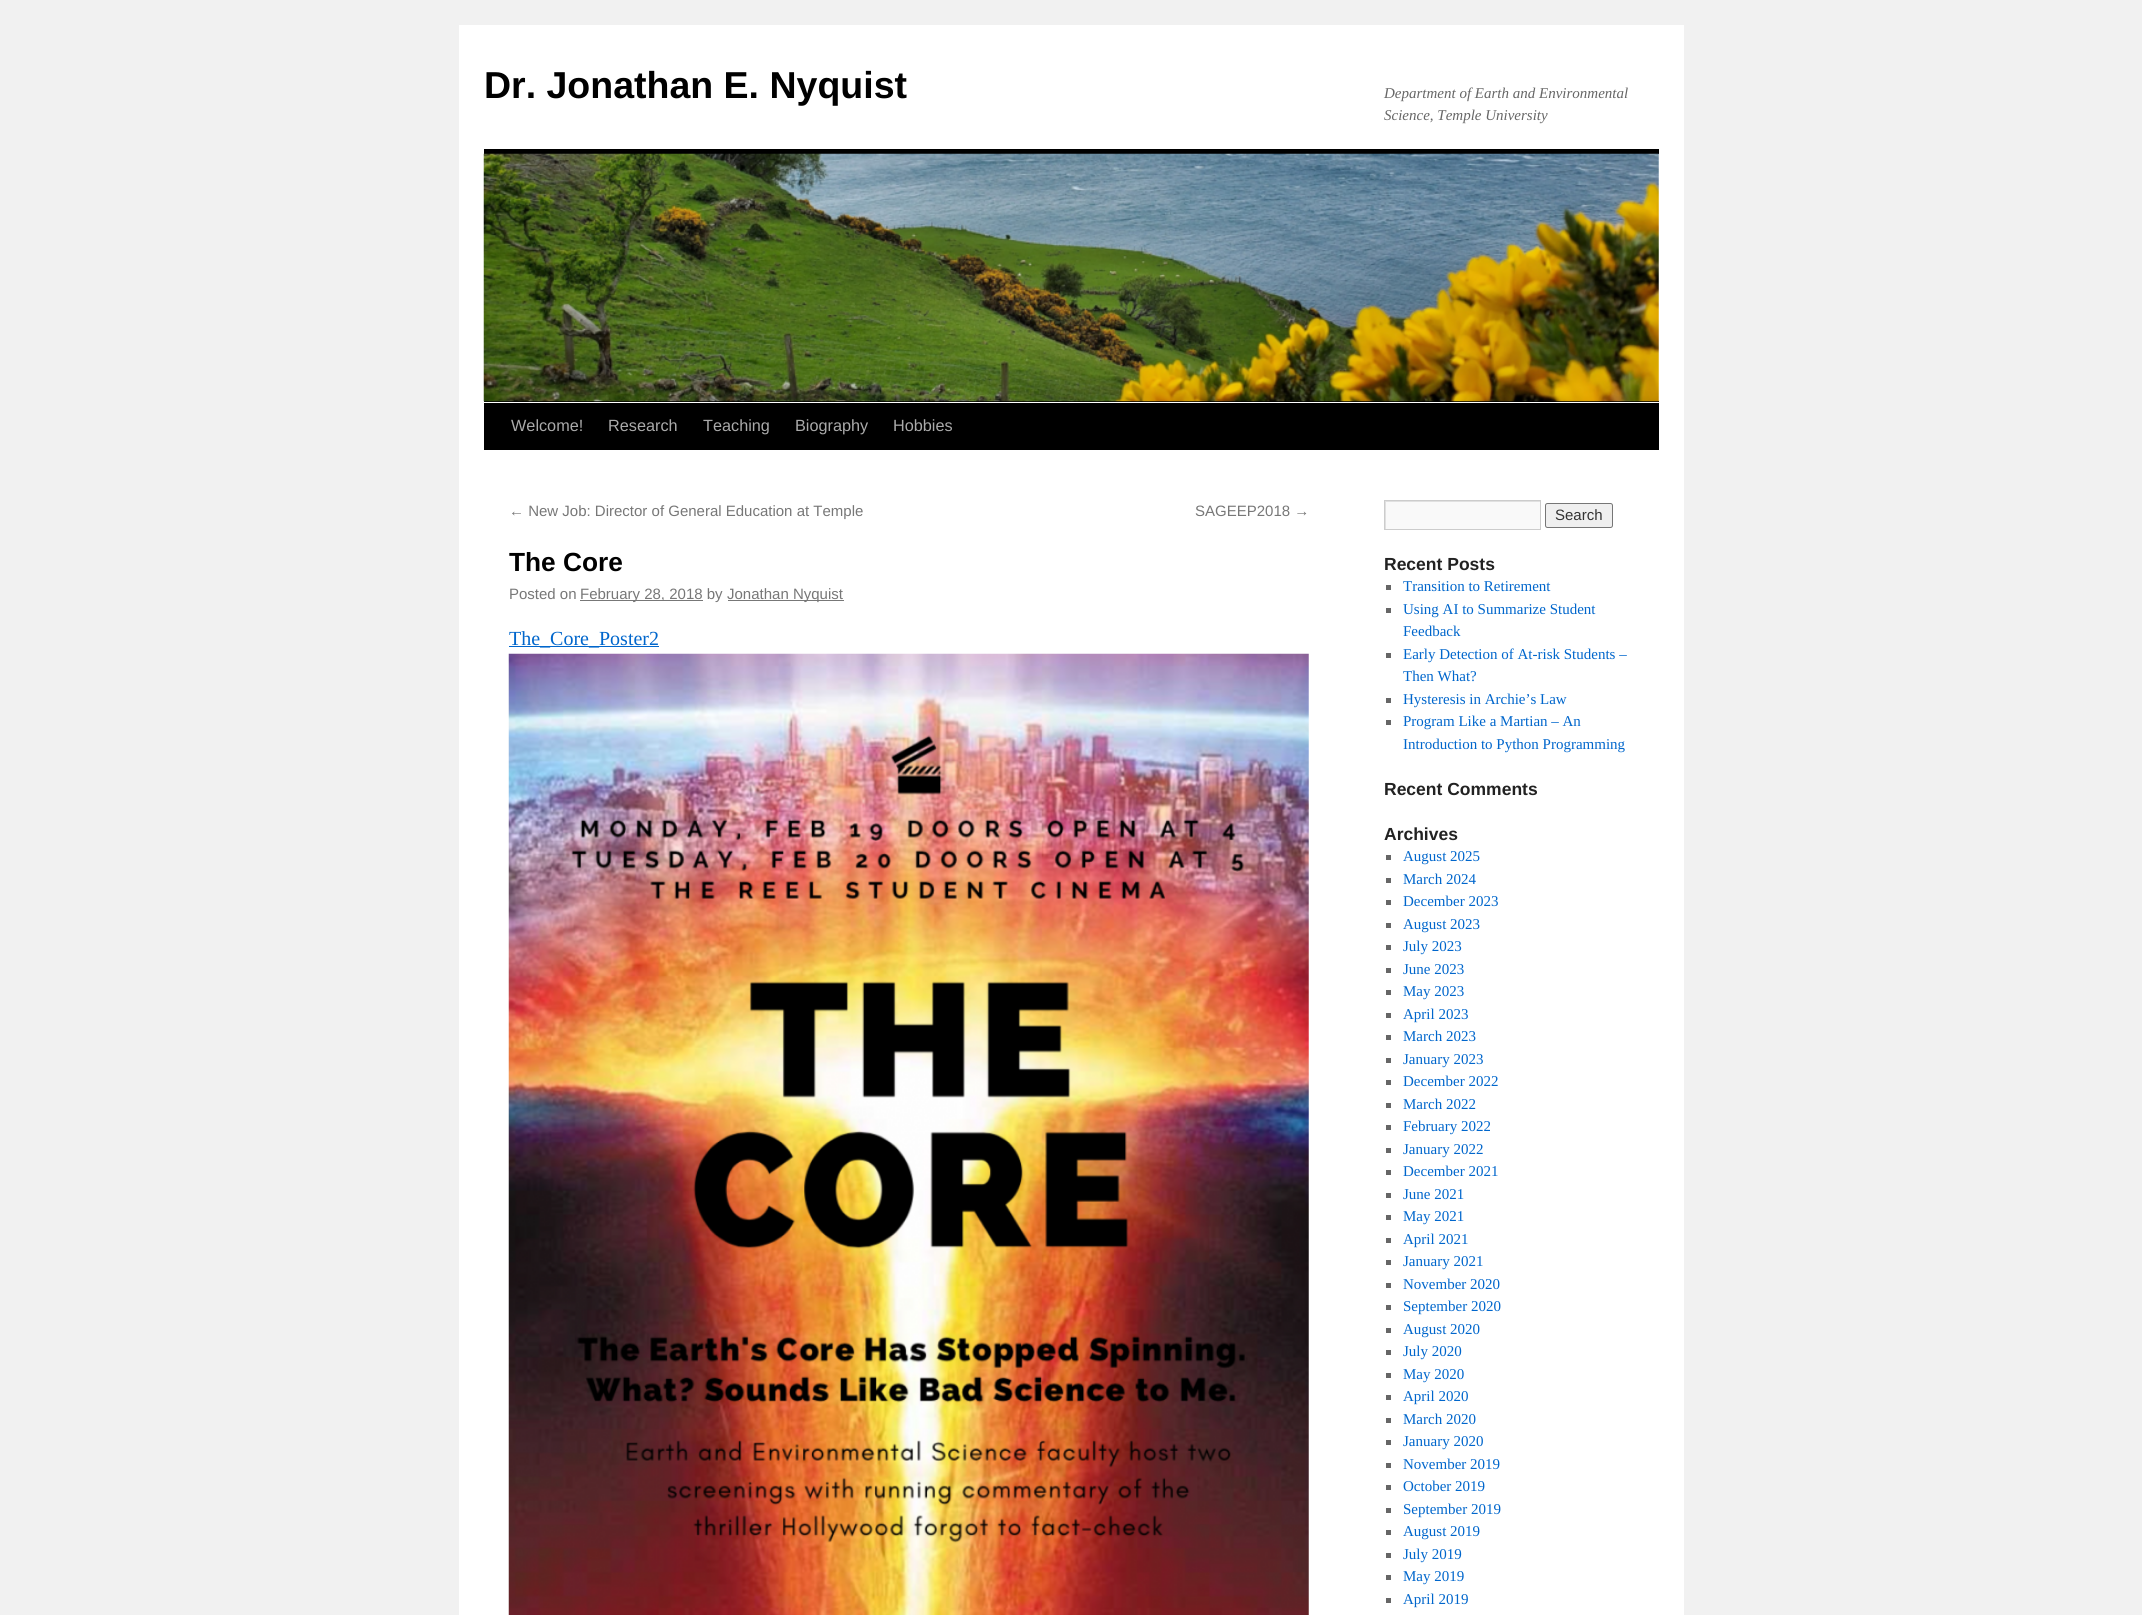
import math
import cairo

surface = cairo.ImageSurface(cairo.FORMAT_RGB24, 2142, 1615)
ctx = cairo.Context(surface)
options = cairo.FontOptions()
options.set_hint_metrics(cairo.HINT_METRICS_OFF)
options.set_hint_style(cairo.HINT_STYLE_NONE)
ctx.set_font_options(options)
ctx.set_miter_limit(4)


def set_color(code):
    ctx.set_source_rgb(*(v / 255 for v in bytes.fromhex(code[-6:])))


def draw_text(x, y, s, family, size, color, bold=False, italic=False):
    ctx.select_font_face(family, cairo.FONT_SLANT_ITALIC if italic else cairo.FONT_SLANT_NORMAL, cairo.FONT_WEIGHT_BOLD if bold else cairo.FONT_WEIGHT_NORMAL)
    ctx.set_font_size(size)
    set_color(color)
    ctx.move_to(x, y)
    ctx.show_text(s)


def fill_rect(x, y, w, h, color):
    set_color(color)
    ctx.rectangle(x, y, w, h)
    ctx.fill()


def rounded_rect(x, y, w, h, r):
    ctx.new_sub_path()
    for i, (u, v) in enumerate([(x + w - r, y + h - r), (x + r, y + h - r), (x + r, y + r), (x + w - r, y + r)]):
        ctx.arc(u, v, r, i * math.pi / 2, (i + 1) * math.pi / 2)
    ctx.close_path()


def draw_image(path, x, y, w, h):
    ctx.save()
    ctx.set_source_surface(cairo.ImageSurface.create_from_png(path), x, y)
    ctx.rectangle(x, y, w, h)
    ctx.fill()
    ctx.restore()


set_color("#f1f1f1")
ctx.paint()
fill_rect(459, 25, 1225, 1590, "#ffffff")
draw_text(484, 98, "Dr. Jonathan E. Nyquist", "Liberation Sans", 37.5, "#000000", bold=True)
draw_text(1384, 98, "Department of Earth and Environmental", "Liberation Serif", 15, "#666666", italic=True)
draw_text(1384, 120, "Science, Temple University", "Liberation Serif", 15, "#666666", italic=True)
fill_rect(484, 149, 1175, 5, "#000000")
fill_rect(484, 401, 1175, 1, "#000000")
draw_image("assets/img1.png", 483, 153, 1176, 249)
fill_rect(484, 403, 1175, 47, "#000000")
draw_text(511, 431, "Welcome!", "Liberation Sans", 16.25, "#aaaaaa")
draw_text(608, 431, "Research", "Liberation Sans", 16.25, "#aaaaaa")
draw_text(703, 431, "Teaching", "Liberation Sans", 16.25, "#aaaaaa")
draw_text(795, 431, "Biography", "Liberation Sans", 16.25, "#aaaaaa")
draw_text(893, 431, "Hobbies", "Liberation Sans", 16.25, "#aaaaaa")
draw_text(509, 516, "← New Job: Director of General Education at Temple", "Liberation Sans", 15, "#777777")
draw_text(1195, 516, "SAGEEP2018 →", "Liberation Sans", 15, "#777777")
draw_text(509, 571, "The Core", "Liberation Sans", 26.25, "#000000", bold=True)
draw_text(509, 599, "Posted on", "Liberation Sans", 15, "#777777")
fill_rect(580, 600, 123, 1, "#777777")
draw_text(580, 599, "February 28, 2018 by", "Liberation Sans", 15, "#777777")
fill_rect(728, 600, 116, 1, "#777777")
draw_text(727, 599, "Jonathan Nyquist", "Liberation Sans", 15, "#777777")
fill_rect(509, 646, 150, 1, "#0066cc")
draw_text(509, 645, "The_Core_Poster2", "Liberation Serif", 20, "#0066cc")
draw_image("assets/img2.png", 508, 653, 801, 962)
fill_rect(1386, 502, 154, 27, "#f9f9f9")
ctx.save()
ctx.rectangle(1385, 501, 155, 28)
ctx.clip()
set_color("#e0e0e0")
ctx.set_fill_rule(cairo.FILL_RULE_EVEN_ODD)
ctx.new_path()
ctx.move_to(1261, 378)
ctx.line_to(1664, 378)
ctx.line_to(1664, 652)
ctx.line_to(1261, 652)
ctx.close_path()
ctx.move_to(1386, 502)
ctx.line_to(1541, 502)
ctx.line_to(1541, 530)
ctx.line_to(1386, 530)
ctx.close_path()
ctx.fill()
ctx.restore()
ctx.rectangle(1384.5, 500.5, 156, 29)
set_color("#cccccc")
ctx.set_line_width(1)
ctx.stroke()
set_color("#efefef")
rounded_rect(1545.5, 503.5, 67, 24, 2)
ctx.fill_preserve()
set_color("#767676")
ctx.stroke()
draw_text(1555, 520, "Search", "Liberation Sans", 15, "#333333")
draw_text(1384, 570, "Recent Posts", "Liberation Sans", 17.5, "#222222", bold=True)
fill_rect(1386, 585, 5, 5, "#666666")
draw_text(1403, 591, "Transition to Retirement", "Liberation Serif", 15, "#0066cc")
fill_rect(1386, 608, 5, 5, "#666666")
draw_text(1403, 614, "Using AI to Summarize Student", "Liberation Serif", 15, "#0066cc")
draw_text(1403, 636, "Feedback", "Liberation Serif", 15, "#0066cc")
fill_rect(1386, 653, 5, 5, "#666666")
draw_text(1403, 659, "Early Detection of At-risk Students –", "Liberation Serif", 15, "#0066cc")
draw_text(1403, 681, "Then What?", "Liberation Serif", 15, "#0066cc")
fill_rect(1386, 698, 5, 5, "#666666")
draw_text(1403, 704, "Hysteresis in Archie’s Law", "Liberation Serif", 15, "#0066cc")
fill_rect(1386, 720, 5, 5, "#666666")
draw_text(1403, 726, "Program Like a Martian – An", "Liberation Serif", 15, "#0066cc")
draw_text(1403, 749, "Introduction to Python Programming", "Liberation Serif", 15, "#0066cc")
draw_text(1384, 795, "Recent Comments", "Liberation Sans", 17.5, "#222222", bold=True)
draw_text(1384, 840, "Archives", "Liberation Sans", 17.5, "#222222", bold=True)
fill_rect(1386, 855, 5, 5, "#666666")
draw_text(1403, 861, "August 2025", "Liberation Serif", 15, "#0066cc")
fill_rect(1386, 878, 5, 5, "#666666")
draw_text(1403, 884, "March 2024", "Liberation Serif", 15, "#0066cc")
fill_rect(1386, 900, 5, 5, "#666666")
draw_text(1403, 906, "December 2023", "Liberation Serif", 15, "#0066cc")
fill_rect(1386, 923, 5, 5, "#666666")
draw_text(1403, 929, "August 2023", "Liberation Serif", 15, "#0066cc")
fill_rect(1386, 945, 5, 5, "#666666")
draw_text(1403, 951, "July 2023", "Liberation Serif", 15, "#0066cc")
fill_rect(1386, 968, 5, 5, "#666666")
draw_text(1403, 974, "June 2023", "Liberation Serif", 15, "#0066cc")
fill_rect(1386, 990, 5, 5, "#666666")
draw_text(1403, 996, "May 2023", "Liberation Serif", 15, "#0066cc")
fill_rect(1386, 1013, 5, 5, "#666666")
draw_text(1403, 1019, "April 2023", "Liberation Serif", 15, "#0066cc")
fill_rect(1386, 1035, 5, 5, "#666666")
draw_text(1403, 1041, "March 2023", "Liberation Serif", 15, "#0066cc")
fill_rect(1386, 1058, 5, 5, "#666666")
draw_text(1403, 1064, "January 2023", "Liberation Serif", 15, "#0066cc")
fill_rect(1386, 1080, 5, 5, "#666666")
draw_text(1403, 1086, "December 2022", "Liberation Serif", 15, "#0066cc")
fill_rect(1386, 1103, 5, 5, "#666666")
draw_text(1403, 1109, "March 2022", "Liberation Serif", 15, "#0066cc")
fill_rect(1386, 1125, 5, 5, "#666666")
draw_text(1403, 1131, "February 2022", "Liberation Serif", 15, "#0066cc")
fill_rect(1386, 1148, 5, 5, "#666666")
draw_text(1403, 1154, "January 2022", "Liberation Serif", 15, "#0066cc")
fill_rect(1386, 1170, 5, 5, "#666666")
draw_text(1403, 1176, "December 2021", "Liberation Serif", 15, "#0066cc")
fill_rect(1386, 1193, 5, 5, "#666666")
draw_text(1403, 1199, "June 2021", "Liberation Serif", 15, "#0066cc")
fill_rect(1386, 1215, 5, 5, "#666666")
draw_text(1403, 1221, "May 2021", "Liberation Serif", 15, "#0066cc")
fill_rect(1386, 1238, 5, 5, "#666666")
draw_text(1403, 1244, "April 2021", "Liberation Serif", 15, "#0066cc")
fill_rect(1386, 1260, 5, 5, "#666666")
draw_text(1403, 1266, "January 2021", "Liberation Serif", 15, "#0066cc")
fill_rect(1386, 1283, 5, 5, "#666666")
draw_text(1403, 1289, "November 2020", "Liberation Serif", 15, "#0066cc")
fill_rect(1386, 1305, 5, 5, "#666666")
draw_text(1403, 1311, "September 2020", "Liberation Serif", 15, "#0066cc")
fill_rect(1386, 1328, 5, 5, "#666666")
draw_text(1403, 1334, "August 2020", "Liberation Serif", 15, "#0066cc")
fill_rect(1386, 1350, 5, 5, "#666666")
draw_text(1403, 1356, "July 2020", "Liberation Serif", 15, "#0066cc")
fill_rect(1386, 1373, 5, 5, "#666666")
draw_text(1403, 1379, "May 2020", "Liberation Serif", 15, "#0066cc")
fill_rect(1386, 1395, 5, 5, "#666666")
draw_text(1403, 1401, "April 2020", "Liberation Serif", 15, "#0066cc")
fill_rect(1386, 1418, 5, 5, "#666666")
draw_text(1403, 1424, "March 2020", "Liberation Serif", 15, "#0066cc")
fill_rect(1386, 1440, 5, 5, "#666666")
draw_text(1403, 1446, "January 2020", "Liberation Serif", 15, "#0066cc")
fill_rect(1386, 1463, 5, 5, "#666666")
draw_text(1403, 1469, "November 2019", "Liberation Serif", 15, "#0066cc")
fill_rect(1386, 1485, 5, 5, "#666666")
draw_text(1403, 1491, "October 2019", "Liberation Serif", 15, "#0066cc")
fill_rect(1386, 1508, 5, 5, "#666666")
draw_text(1403, 1514, "September 2019", "Liberation Serif", 15, "#0066cc")
fill_rect(1386, 1530, 5, 5, "#666666")
draw_text(1403, 1536, "August 2019", "Liberation Serif", 15, "#0066cc")
fill_rect(1386, 1553, 5, 5, "#666666")
draw_text(1403, 1559, "July 2019", "Liberation Serif", 15, "#0066cc")
fill_rect(1386, 1575, 5, 5, "#666666")
draw_text(1403, 1581, "May 2019", "Liberation Serif", 15, "#0066cc")
fill_rect(1386, 1598, 5, 5, "#666666")
draw_text(1403, 1604, "April 2019", "Liberation Serif", 15, "#0066cc")
surface.write_to_png("output.png")
